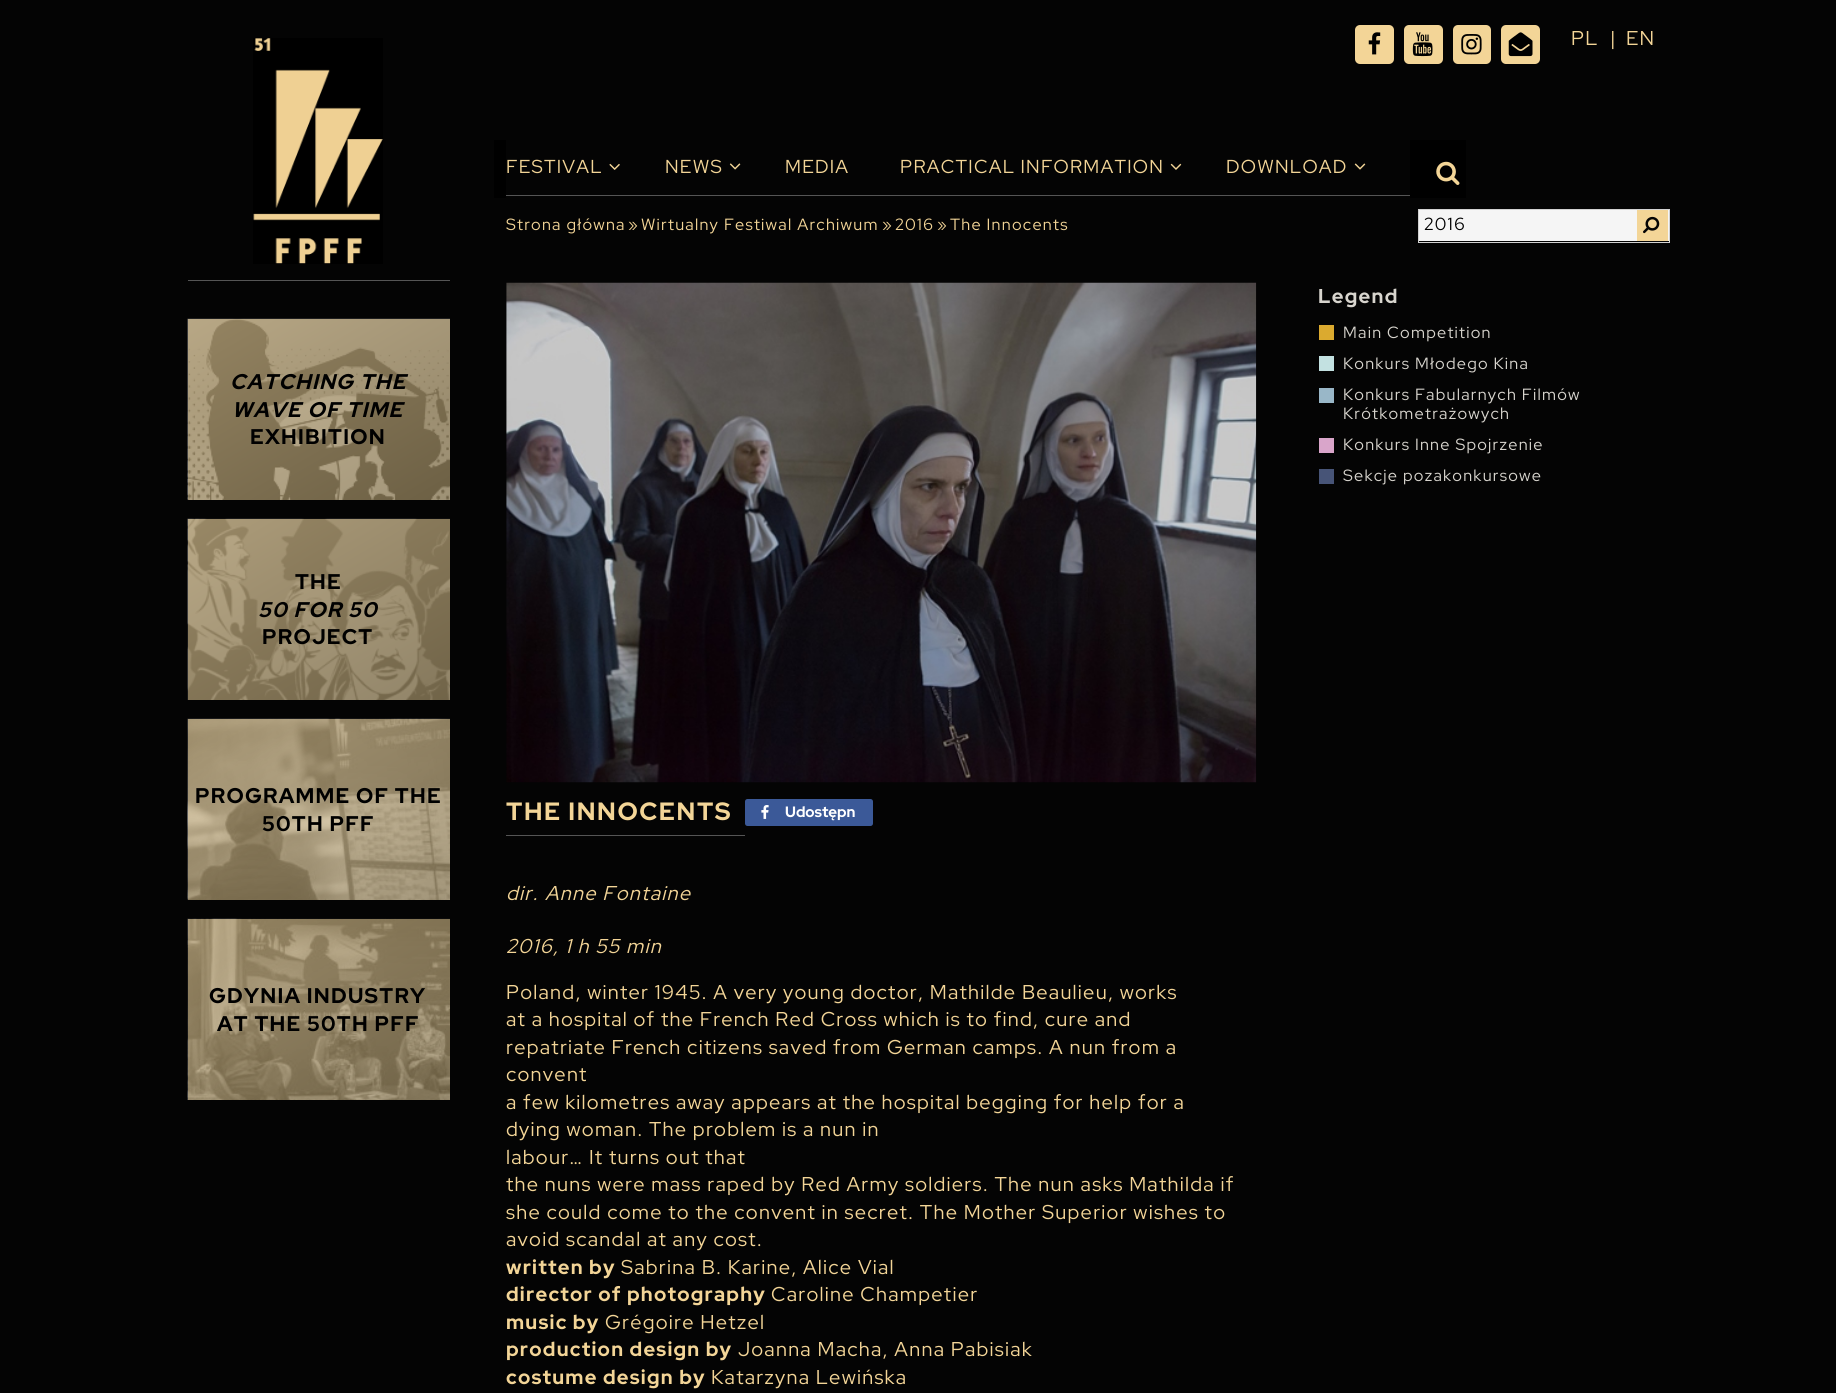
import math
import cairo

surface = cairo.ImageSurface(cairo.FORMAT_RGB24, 1836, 1393)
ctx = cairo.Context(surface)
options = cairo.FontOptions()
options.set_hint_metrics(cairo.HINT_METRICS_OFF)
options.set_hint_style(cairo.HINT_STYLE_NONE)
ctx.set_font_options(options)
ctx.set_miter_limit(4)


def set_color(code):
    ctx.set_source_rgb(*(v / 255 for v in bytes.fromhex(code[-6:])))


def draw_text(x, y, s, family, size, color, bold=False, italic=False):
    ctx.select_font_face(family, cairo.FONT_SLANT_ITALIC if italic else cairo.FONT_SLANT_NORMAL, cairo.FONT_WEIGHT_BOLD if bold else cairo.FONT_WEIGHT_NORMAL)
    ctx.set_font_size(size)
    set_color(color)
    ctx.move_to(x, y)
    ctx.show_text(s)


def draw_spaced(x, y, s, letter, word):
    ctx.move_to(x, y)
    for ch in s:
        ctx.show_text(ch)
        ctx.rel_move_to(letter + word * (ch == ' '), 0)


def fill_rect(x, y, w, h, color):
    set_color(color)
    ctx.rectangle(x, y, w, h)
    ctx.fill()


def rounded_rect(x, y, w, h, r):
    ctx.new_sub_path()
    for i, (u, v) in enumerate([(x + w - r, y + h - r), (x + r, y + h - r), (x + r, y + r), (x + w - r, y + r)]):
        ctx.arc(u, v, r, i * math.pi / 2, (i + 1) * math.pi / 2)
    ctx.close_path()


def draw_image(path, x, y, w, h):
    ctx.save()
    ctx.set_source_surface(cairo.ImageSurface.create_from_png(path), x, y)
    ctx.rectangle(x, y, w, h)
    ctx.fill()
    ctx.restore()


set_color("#040404")
ctx.paint()
draw_image("assets/img1.png", 253, 38, 130, 226)
fill_rect(188, 280, 262, 1, "#555555")
draw_image("assets/img2.png", 187, 318, 263, 182)
ctx.select_font_face("Red Hat Display", cairo.FONT_SLANT_ITALIC, cairo.FONT_WEIGHT_BOLD)
ctx.set_font_size(21.25)
set_color("#000000")
draw_spaced(230, 389, "CATCHING THE", 1.25, 0)
draw_spaced(232, 417, "WAVE OF TIME", 1.25, 0)
ctx.select_font_face("Red Hat Display", cairo.FONT_SLANT_NORMAL, cairo.FONT_WEIGHT_BOLD)
draw_spaced(250, 444, "EXHIBITION", 1.25, 0)
draw_image("assets/img3.png", 187, 518, 263, 182)
draw_spaced(295, 589, "THE", 1.25, 0)
ctx.select_font_face("Red Hat Display", cairo.FONT_SLANT_ITALIC, cairo.FONT_WEIGHT_BOLD)
draw_spaced(258, 617, "50 FOR 50", 1.25, 0)
ctx.select_font_face("Red Hat Display", cairo.FONT_SLANT_NORMAL, cairo.FONT_WEIGHT_BOLD)
draw_spaced(262, 644, "PROJECT", 1.25, 0)
draw_image("assets/img4.png", 187, 718, 263, 182)
draw_spaced(195, 803, "PROGRAMME OF THE", 1.25, 0)
draw_spaced(262, 831, "50TH PFF", 1.25, 0)
draw_image("assets/img5.png", 187, 918, 263, 182)
draw_spaced(209, 1003, "GDYNIA INDUSTRY", 1.25, 0)
draw_spaced(217, 1031, "AT THE 50TH PFF", 1.25, 0)
set_color("#f3d597")
rounded_rect(1355, 25, 39, 39, 5)
ctx.fill()
draw_image("assets/img6.png", 1368, 32, 13, 23)
rounded_rect(1404, 25, 39, 39, 5)
ctx.fill()
draw_image("assets/img7.png", 1412, 32, 21, 25)
rounded_rect(1453, 25, 38, 39, 5)
ctx.fill()
draw_image("assets/img8.png", 1461, 34, 21, 21)
rounded_rect(1501, 25, 39, 39, 5)
ctx.fill()
draw_image("assets/img9.png", 1508, 32, 25, 25)
ctx.select_font_face("Red Hat Display")
ctx.set_font_size(20)
draw_spaced(1571, 45, "PL", 1.25, 0)
draw_spaced(1610, 45, "|", 1.25, 0)
draw_spaced(1626, 45, "EN", 1.25, 0)
fill_rect(494, 140, 972, 58, "#000000")
fill_rect(506, 140, 904, 58, "#040404")
ctx.set_font_size(18.75)
set_color("#f3d597")
draw_spaced(506, 173, "FESTIVAL", 1.25, 0)
draw_image("assets/img10.png", 609, 163, 11, 7)
draw_spaced(665, 173, "NEWS", 1.25, 0)
draw_image("assets/img11.png", 729, 163, 12, 7)
draw_spaced(785, 173, "MEDIA", 1.25, 0)
draw_spaced(900, 173, "PRACTICAL INFORMATION", 1.25, 0)
draw_image("assets/img12.png", 1170, 163, 12, 7)
draw_spaced(1226, 173, "DOWNLOAD", 1.25, 0)
draw_image("assets/img13.png", 1354, 163, 12, 7)
fill_rect(506, 195, 904, 1, "#555555")
draw_image("assets/img14.png", 1436, 161, 24, 24)
ctx.set_font_size(16.25)
set_color("#f3d597")
draw_spaced(506, 230, "Strona główna", 1.25, 0)
draw_spaced(628, 230, "»", 1.25, 0)
draw_spaced(641, 230, "Wirtualny Festiwal Archiwum", 1.25, 0)
draw_spaced(882, 230, "»", 1.25, 0)
draw_spaced(895, 230, "2016", 1.25, 0)
draw_spaced(937, 230, "»", 1.25, 0)
draw_spaced(950, 230, "The Innocents", 1.25, 0)
ctx.rectangle(1418.5, 209.5, 251, 33)
set_color("#d2d2d2")
ctx.set_line_width(1)
ctx.stroke()
fill_rect(1419, 210, 250, 31, "#f5f5f5")
ctx.set_font_size(17.5)
set_color("#000000")
draw_spaced(1424, 230, "2016", 1.25, 0)
fill_rect(1637, 210, 31, 31, "#f3d597")
draw_image("assets/img15.png", 1643, 216, 17, 18)
ctx.select_font_face("Red Hat Display", cairo.FONT_SLANT_NORMAL, cairo.FONT_WEIGHT_BOLD)
ctx.set_font_size(20)
set_color("#d8d5ce")
draw_spaced(1318, 303, "Legend", 1.25, 0)
fill_rect(1319, 325, 15, 15, "#dbaa2f")
ctx.select_font_face("Red Hat Display")
ctx.set_font_size(16.25)
set_color("#d8d5ce")
draw_spaced(1343, 338, "Main Competition", 1.25, 0)
fill_rect(1319, 356, 15, 15, "#c3e1e1")
set_color("#d8d5ce")
draw_spaced(1343, 369, "Konkurs Młodego Kina", 1.25, 0)
fill_rect(1319, 388, 15, 15, "#99b7c8")
set_color("#d8d5ce")
draw_spaced(1343, 400, "Konkurs Fabularnych Filmów", 1.25, 0)
draw_spaced(1343, 419, "Krótkometrażowych", 1.25, 0)
fill_rect(1319, 438, 15, 15, "#d9a5ca")
set_color("#d8d5ce")
draw_spaced(1343, 450, "Konkurs Inne Spojrzenie", 1.25, 0)
fill_rect(1319, 469, 15, 15, "#475477")
set_color("#d8d5ce")
draw_spaced(1343, 481, "Sekcje pozakonkursowe", 1.25, 0)
draw_image("assets/img16.png", 506, 282, 751, 501)
ctx.select_font_face("Red Hat Display", cairo.FONT_SLANT_NORMAL, cairo.FONT_WEIGHT_BOLD)
ctx.set_font_size(25)
set_color("#f3d597")
draw_spaced(506, 820, "THE INNOCENTS", 1.6, 0)
fill_rect(506, 835, 239, 1, "#555555")
set_color("#3b5998")
rounded_rect(745, 799, 128, 27, 2.5)
ctx.fill()
draw_image("assets/img17.png", 761, 805, 8, 14)
draw_text(785, 817, "Udostępn", "Red Hat Display", 15, "#ffffff", bold=True)
ctx.select_font_face("Red Hat Display", cairo.FONT_SLANT_ITALIC)
ctx.set_font_size(20)
set_color("#f3d597")
draw_spaced(506, 900, "dir.", 1.25, 0)
draw_spaced(545, 900, "Anne Fontaine", 1.25, 0)
draw_spaced(506, 953, "2016, 1 h 55 min", 1.25, 0)
ctx.select_font_face("Red Hat Display")
draw_spaced(506, 999, "Poland, winter 1945. A very young doctor, Mathilde Beaulieu, works", 1.25, 0)
draw_spaced(506, 1026, "at a hospital of the French Red Cross which is to find, cure and", 1.25, 0)
draw_spaced(506, 1054, "repatriate French citizens saved from German camps. A nun from a", 1.25, 0)
draw_spaced(506, 1081, "convent", 1.25, 0)
draw_spaced(506, 1109, "a few kilometres away appears at the hospital begging for help for a", 1.25, 0)
draw_spaced(506, 1136, "dying woman. The problem is a nun in", 1.25, 0)
draw_spaced(506, 1164, "labour… It turns out that", 1.25, 0)
draw_spaced(506, 1191, "the nuns were mass raped by Red Army soldiers. The nun asks Mathilda if", 1.25, 0)
draw_spaced(506, 1219, "she could come to the convent in secret. The Mother Superior wishes to", 1.25, 0)
draw_spaced(506, 1246, "avoid scandal at any cost.", 1.25, 0)
ctx.select_font_face("Red Hat Display", cairo.FONT_SLANT_NORMAL, cairo.FONT_WEIGHT_BOLD)
draw_spaced(506, 1274, "written by", 1.25, 0)
ctx.select_font_face("Red Hat Display")
draw_spaced(621, 1274, "Sabrina B. Karine, Alice Vial", 1.25, 0)
ctx.select_font_face("Red Hat Display", cairo.FONT_SLANT_NORMAL, cairo.FONT_WEIGHT_BOLD)
draw_spaced(506, 1301, "director of photography", 1.25, 0)
ctx.select_font_face("Red Hat Display")
draw_spaced(771, 1301, "Caroline Champetier", 1.25, 0)
ctx.select_font_face("Red Hat Display", cairo.FONT_SLANT_NORMAL, cairo.FONT_WEIGHT_BOLD)
draw_spaced(506, 1329, "music by", 1.25, 0)
ctx.select_font_face("Red Hat Display")
draw_spaced(605, 1329, "Grégoire Hetzel", 1.25, 0)
ctx.select_font_face("Red Hat Display", cairo.FONT_SLANT_NORMAL, cairo.FONT_WEIGHT_BOLD)
draw_spaced(506, 1356, "production design by", 1.25, 0)
ctx.select_font_face("Red Hat Display")
draw_spaced(738, 1356, "Joanna Macha, Anna Pabisiak", 1.25, 0)
ctx.select_font_face("Red Hat Display", cairo.FONT_SLANT_NORMAL, cairo.FONT_WEIGHT_BOLD)
draw_spaced(506, 1384, "costume design by", 1.25, 0)
ctx.select_font_face("Red Hat Display")
draw_spaced(711, 1384, "Katarzyna Lewińska", 1.25, 0)
surface.write_to_png("output.png")
